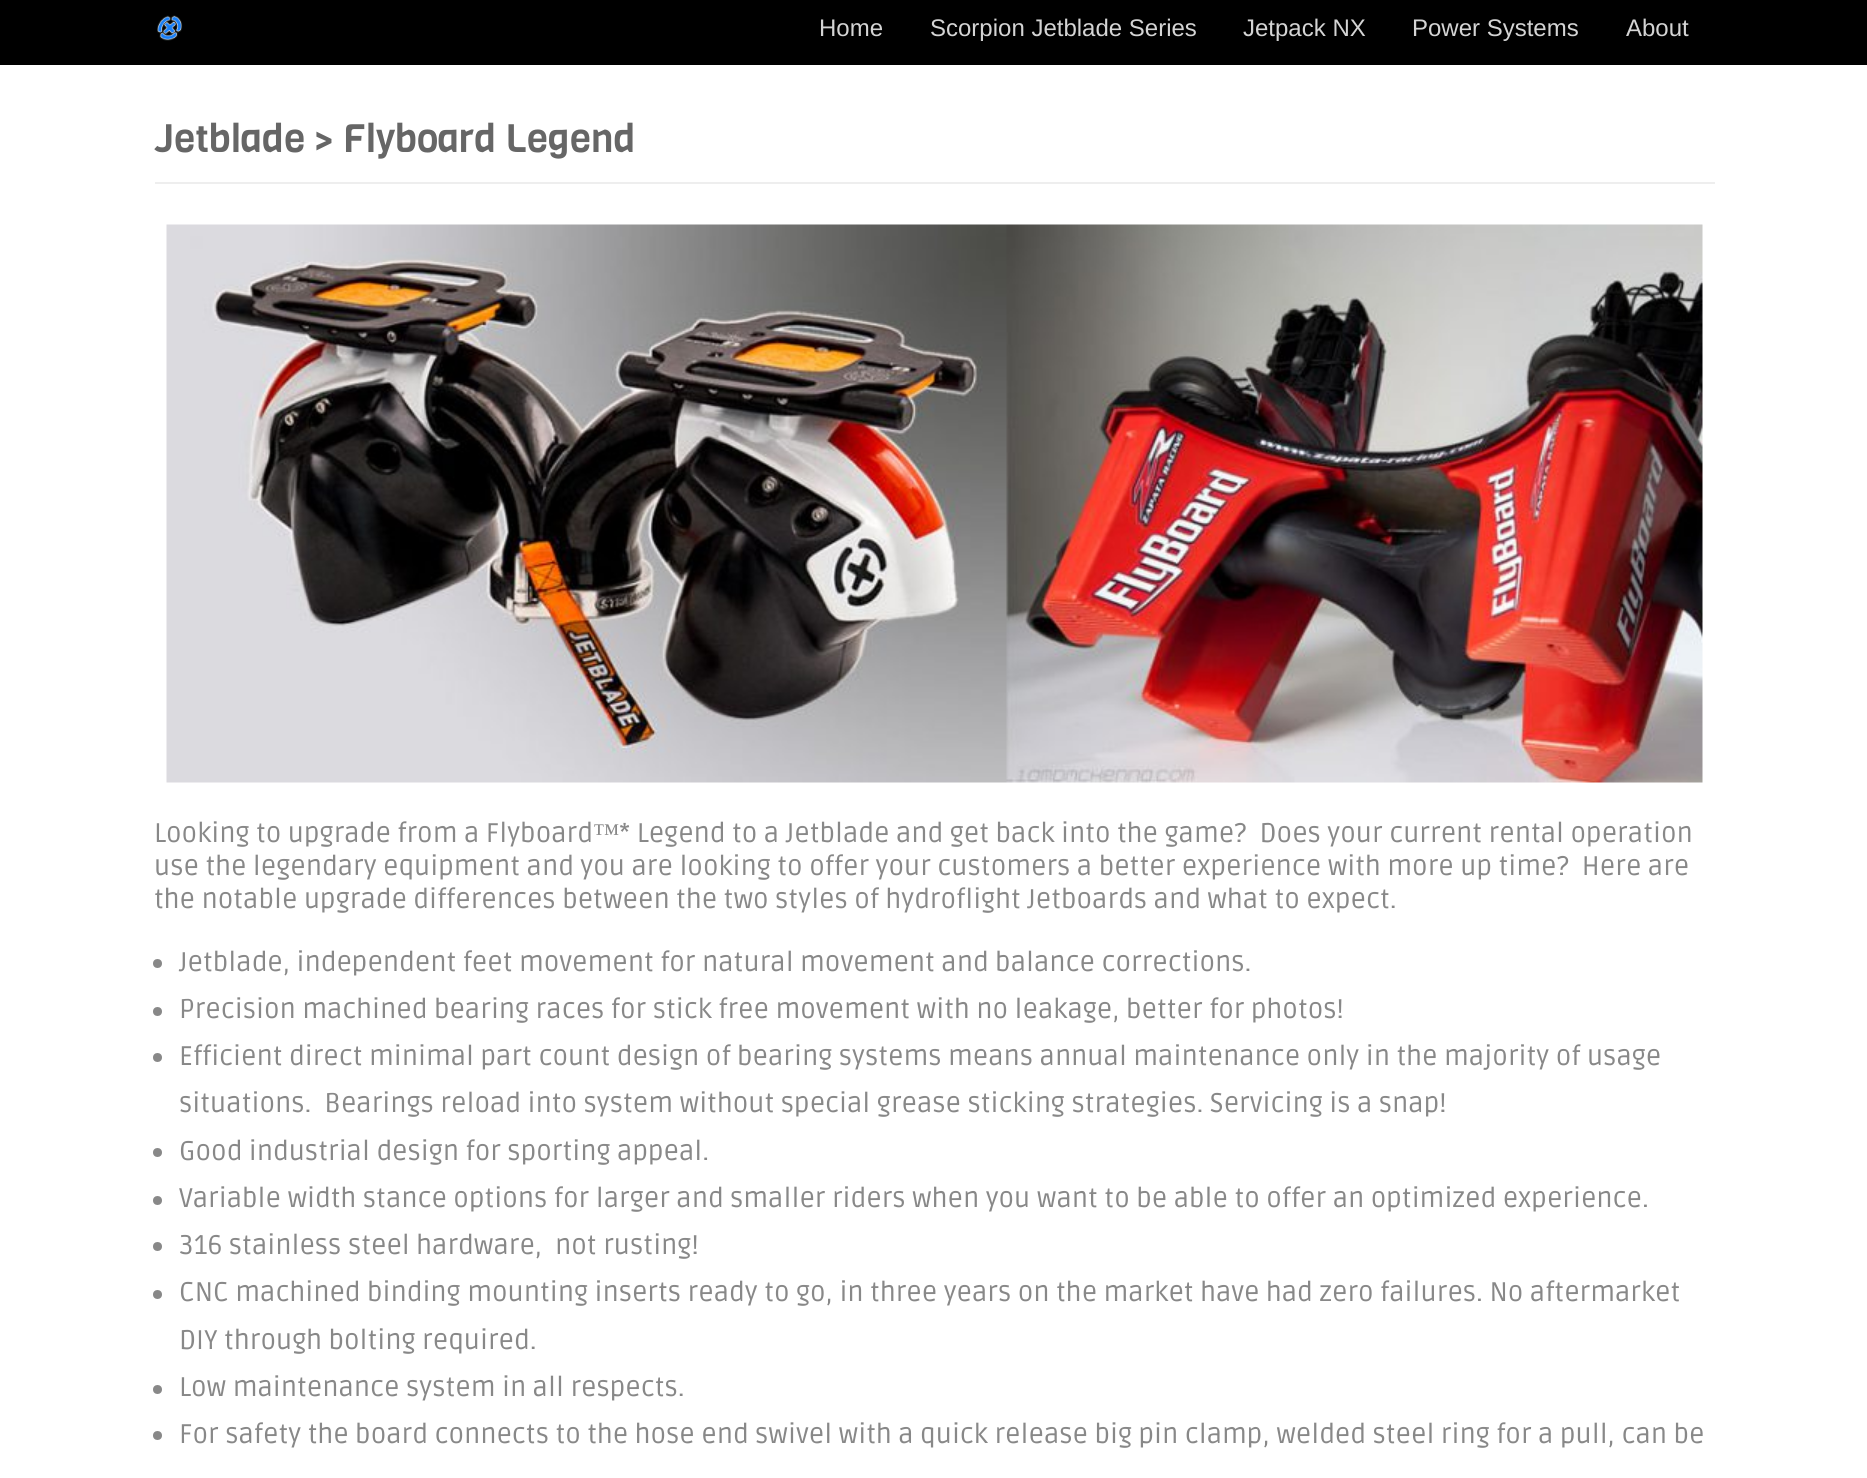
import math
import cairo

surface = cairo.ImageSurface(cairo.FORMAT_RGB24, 1867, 1478)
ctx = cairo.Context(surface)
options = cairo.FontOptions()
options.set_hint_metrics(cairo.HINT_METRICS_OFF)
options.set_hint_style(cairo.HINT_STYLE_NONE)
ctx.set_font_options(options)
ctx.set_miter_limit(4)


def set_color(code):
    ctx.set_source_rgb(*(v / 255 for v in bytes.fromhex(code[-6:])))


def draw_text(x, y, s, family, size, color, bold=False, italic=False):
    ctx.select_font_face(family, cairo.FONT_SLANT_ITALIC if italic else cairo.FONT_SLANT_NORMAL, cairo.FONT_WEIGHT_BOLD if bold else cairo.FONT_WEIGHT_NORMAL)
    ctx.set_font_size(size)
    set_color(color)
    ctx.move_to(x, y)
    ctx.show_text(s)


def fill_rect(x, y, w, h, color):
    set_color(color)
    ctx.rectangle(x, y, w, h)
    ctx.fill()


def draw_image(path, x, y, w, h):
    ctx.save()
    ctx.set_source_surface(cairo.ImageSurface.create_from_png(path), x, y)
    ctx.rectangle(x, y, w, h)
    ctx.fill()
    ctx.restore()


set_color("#ffffff")
ctx.paint()
fill_rect(0, 0, 1867, 65, "#000000")
draw_image("assets/img1.png", 157, 15, 26, 26)
draw_text(819, 36, "Home", "Liberation Sans", 24, "#d4d4d4")
draw_text(930, 36, "Scorpion Jetblade Series", "Liberation Sans", 24, "#d4d4d4")
draw_text(1243, 36, "Jetpack NX", "Liberation Sans", 24, "#d4d4d4")
draw_text(1412, 36, "Power Systems", "Liberation Sans", 24, "#d4d4d4")
draw_text(1626, 36, "About", "Liberation Sans", 24, "#d4d4d4")
draw_text(154, 152, "Jetblade > Flyboard Legend", "Viga", 39, "#666666")
fill_rect(155, 182, 1560, 2, "#eeeeee")
draw_image("assets/img2.png", 166, 224, 1537, 559)
draw_text(154, 842, "Looking to upgrade from a Flyboard", "Ruda", 27, "#888888")
draw_text(593, 842, "™", "Liberation Serif", 27, "#888888")
draw_text(619, 842, "* Legend to a Jetblade and get back into the game?  Does your current rental operation", "Ruda", 27, "#888888")
draw_text(154, 875, "use the legendary equipment and you are looking to offer your customers a better experience with more up time?  Here are", "Ruda", 27, "#888888")
draw_text(154, 908, "the notable upgrade differences between the two styles of hydroflight Jetboards and what to expect.", "Ruda", 27, "#888888")
ctx.new_path()
ctx.arc(157.5, 963.5, 4.5, 0, 2 * math.pi)
ctx.fill()
draw_text(179, 971, "Jetblade, independent feet movement for natural movement and balance corrections.", "Ruda", 27, "#888888")
ctx.new_path()
ctx.arc(157.5, 1011.5, 4.5, 0, 2 * math.pi)
ctx.fill()
draw_text(179, 1018, "Precision machined bearing races for stick free movement with no leakage, better for photos!", "Ruda", 27, "#888888")
ctx.new_path()
ctx.arc(157.5, 1057.5, 4.5, 0, 2 * math.pi)
ctx.fill()
draw_text(179, 1065, "Efficient direct minimal part count design of bearing systems means annual maintenance only in the majority of usage", "Ruda", 27, "#888888")
draw_text(179, 1112, "situations.  Bearings reload into system without special grease sticking strategies. Servicing is a snap!", "Ruda", 27, "#888888")
ctx.new_path()
ctx.arc(157.5, 1152.5, 4.5, 0, 2 * math.pi)
ctx.fill()
draw_text(179, 1160, "Good industrial design for sporting appeal.", "Ruda", 27, "#888888")
ctx.new_path()
ctx.arc(157.5, 1200.5, 4.5, 0, 2 * math.pi)
ctx.fill()
draw_text(179, 1207, "Variable width stance options for larger and smaller riders when you want to be able to offer an optimized experience.", "Ruda", 27, "#888888")
ctx.new_path()
ctx.arc(157.5, 1246.5, 4.5, 0, 2 * math.pi)
ctx.fill()
draw_text(179, 1254, "316 stainless steel hardware,  not rusting!", "Ruda", 27, "#888888")
ctx.new_path()
ctx.arc(157.5, 1294.5, 4.5, 0, 2 * math.pi)
ctx.fill()
draw_text(179, 1301, "CNC machined binding mounting inserts ready to go, in three years on the market have had zero failures. No aftermarket", "Ruda", 27, "#888888")
draw_text(179, 1349, "DIY through bolting required.", "Ruda", 27, "#888888")
ctx.new_path()
ctx.arc(157.5, 1389.5, 4.5, 0, 2 * math.pi)
ctx.fill()
draw_text(179, 1396, "Low maintenance system in all respects.", "Ruda", 27, "#888888")
ctx.new_path()
ctx.arc(157.5, 1435.5, 4.5, 0, 2 * math.pi)
ctx.fill()
draw_text(179, 1443, "For safety the board connects to the hose end swivel with a quick release big pin clamp, welded steel ring for a pull, can be", "Ruda", 27, "#888888")
surface.write_to_png("output.png")
